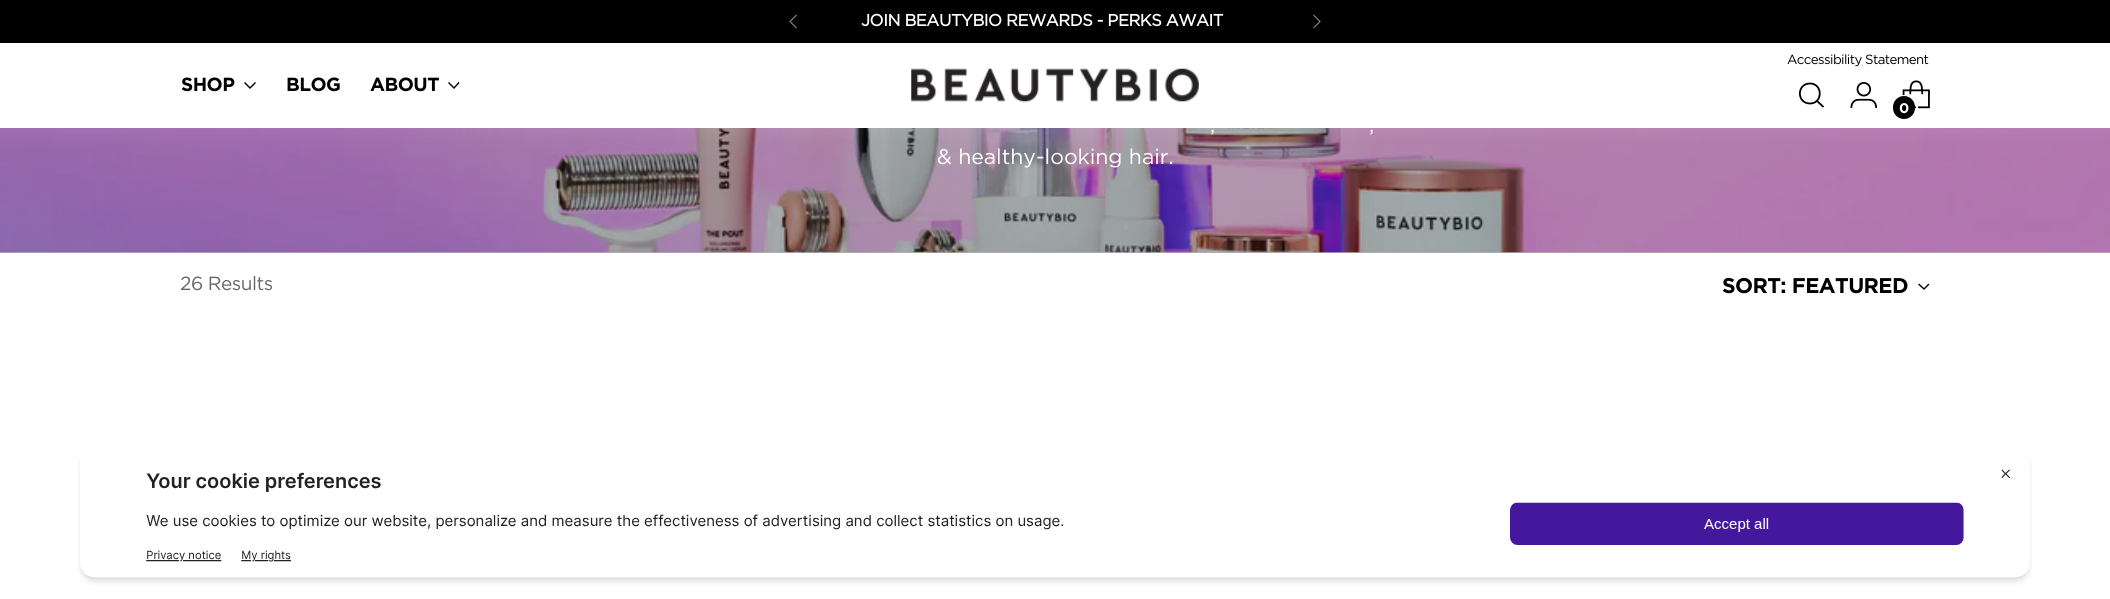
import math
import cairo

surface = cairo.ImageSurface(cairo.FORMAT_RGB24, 2110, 599)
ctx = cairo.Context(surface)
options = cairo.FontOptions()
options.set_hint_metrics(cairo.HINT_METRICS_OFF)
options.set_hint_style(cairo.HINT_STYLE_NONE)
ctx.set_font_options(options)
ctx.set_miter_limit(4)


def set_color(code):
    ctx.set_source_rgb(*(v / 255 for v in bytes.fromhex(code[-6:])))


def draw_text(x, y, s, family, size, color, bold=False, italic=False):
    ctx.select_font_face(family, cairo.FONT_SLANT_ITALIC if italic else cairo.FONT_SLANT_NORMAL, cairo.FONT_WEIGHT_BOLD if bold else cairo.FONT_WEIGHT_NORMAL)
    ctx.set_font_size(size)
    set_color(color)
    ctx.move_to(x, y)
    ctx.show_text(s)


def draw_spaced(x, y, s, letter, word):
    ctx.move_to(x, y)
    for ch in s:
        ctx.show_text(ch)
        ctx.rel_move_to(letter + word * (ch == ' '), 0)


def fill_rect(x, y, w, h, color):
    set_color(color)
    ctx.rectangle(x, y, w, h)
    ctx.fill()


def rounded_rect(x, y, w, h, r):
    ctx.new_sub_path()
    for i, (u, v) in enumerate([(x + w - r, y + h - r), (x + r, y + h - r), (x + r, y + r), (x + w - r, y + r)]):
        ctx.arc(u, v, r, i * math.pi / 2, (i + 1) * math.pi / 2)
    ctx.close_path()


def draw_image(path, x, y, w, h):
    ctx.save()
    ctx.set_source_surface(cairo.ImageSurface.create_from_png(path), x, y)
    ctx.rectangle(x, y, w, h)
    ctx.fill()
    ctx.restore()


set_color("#ffffff")
ctx.paint()
fill_rect(0, 0, 2110, 43, "#000000")
ctx.new_path()
ctx.move_to(796.5, 15)
ctx.line_to(790, 21.5)
ctx.line_to(796.5, 28)
set_color("#808080")
ctx.set_line_width(1.2)
ctx.stroke()
ctx.new_path()
ctx.move_to(1313.5, 28)
ctx.line_to(1320, 21.5)
ctx.line_to(1313.5, 15)
ctx.stroke()
ctx.select_font_face("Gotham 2", cairo.FONT_SLANT_NORMAL, cairo.FONT_WEIGHT_BOLD)
ctx.set_font_size(16.5)
set_color("#ffffff")
draw_spaced(861, 26, "JOIN BEAUTYBIO REWARDS - PERKS AWAIT", -0.5, 0)
ctx.select_font_face("Gotham", cairo.FONT_SLANT_NORMAL, cairo.FONT_WEIGHT_BOLD)
ctx.set_font_size(19)
set_color("#000000")
draw_spaced(181, 91, "SHOP", -0.5, 0)
ctx.new_path()
ctx.move_to(244.5, 82.5)
ctx.line_to(250, 88)
ctx.line_to(255.5, 82.5)
ctx.set_line_width(1.4)
ctx.stroke()
draw_spaced(286, 91, "BLOG", -0.5, 0)
draw_spaced(370, 91, "ABOUT", -0.5, 0)
ctx.new_path()
ctx.move_to(448.5, 82.5)
ctx.line_to(454, 88)
ctx.line_to(459, 82.5)
ctx.stroke()
draw_image("assets/img1.png", 911, 68, 288, 34)
ctx.select_font_face("Gotham")
ctx.set_font_size(13.25)
draw_spaced(1787, 64, "Accessibility Statement", -0.6, 0)
ctx.new_path()
ctx.move_to(1810, 103.5)
ctx.curve_to(1823, 103.5, 1823, 83.5, 1810, 83.5)
ctx.curve_to(1796.5, 83.5, 1796.5, 103.5, 1810, 103.5)
ctx.close_path()
ctx.set_line_width(1.8)
ctx.set_line_cap(cairo.LINE_CAP_ROUND)
ctx.stroke()
ctx.new_path()
ctx.move_to(1817, 101)
ctx.line_to(1823.5, 107)
ctx.set_line_cap(cairo.LINE_CAP_BUTT)
ctx.stroke()
draw_image("assets/img2.png", 1850, 82, 28, 26)
draw_image("assets/img3.png", 1902, 80, 28, 29)
rounded_rect(1892, 96, 25, 24, 12)
set_color("#ffffff")
ctx.set_line_width(2)
ctx.stroke()
set_color("#000000")
rounded_rect(1893, 96, 22, 23, 11)
ctx.fill()
draw_text(1899, 113, "0", "Gotham", 14, "#ffffff", bold=True)
draw_image("assets/img4.png", 0, 128, 2110, 125)
gradient = cairo.LinearGradient(1055, -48, 1055, 253)
gradient.add_color_stop_rgba(0, 0, 0, 0, 0)
gradient.add_color_stop_rgba(0.63, 0, 0, 0, 0.3)
ctx.set_source(gradient)
ctx.rectangle(0, 128, 2110, 125)
ctx.fill()
draw_text(1210, 132, ",", "Gotham", 21.25, "#ffffff")
draw_text(1369, 132, ",", "Gotham", 21.25, "#ffffff")
draw_text(937, 164, "& healthy-looking hair.", "Gotham", 21.25, "#ffffff")
ctx.set_font_size(19)
set_color("#666666")
draw_spaced(180, 290, "26 Results", -0.5, 0)
ctx.select_font_face("Gotham", cairo.FONT_SLANT_NORMAL, cairo.FONT_WEIGHT_BOLD)
ctx.set_font_size(21.25)
set_color("#000000")
draw_spaced(1722, 293, "SORT: FEATURED", -0.6, 0)
ctx.new_path()
ctx.move_to(1918.5, 284)
ctx.line_to(1924, 289)
ctx.line_to(1929, 284)
ctx.set_line_width(1.4)
ctx.stroke()
draw_image("assets/img5.png", 78, 448, 1954, 137)
surface.write_to_png("output.png")
